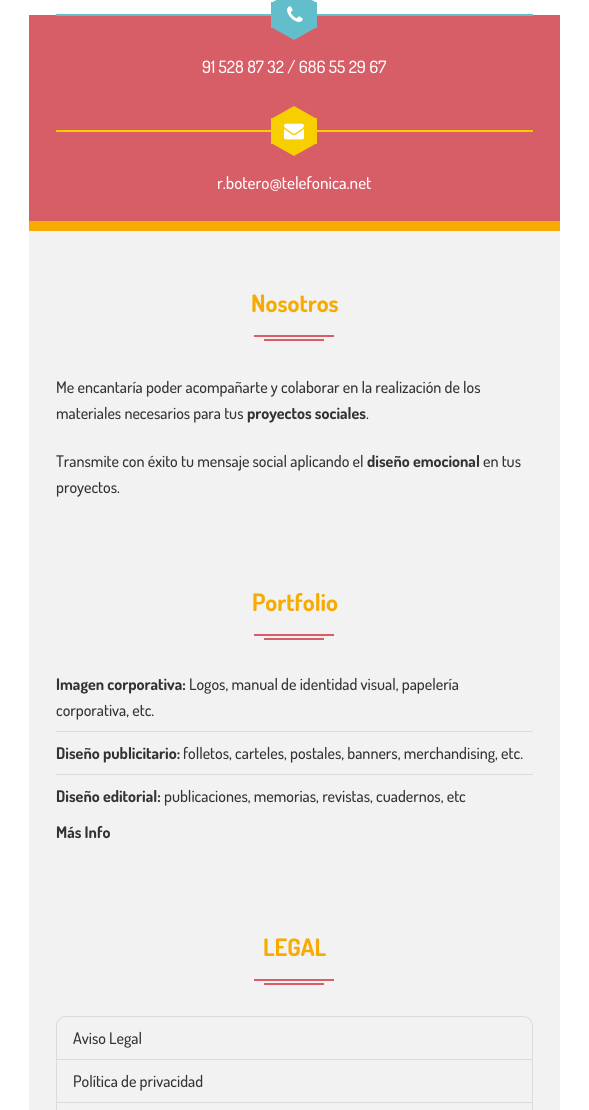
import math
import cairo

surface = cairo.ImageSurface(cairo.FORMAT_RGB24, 589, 1110)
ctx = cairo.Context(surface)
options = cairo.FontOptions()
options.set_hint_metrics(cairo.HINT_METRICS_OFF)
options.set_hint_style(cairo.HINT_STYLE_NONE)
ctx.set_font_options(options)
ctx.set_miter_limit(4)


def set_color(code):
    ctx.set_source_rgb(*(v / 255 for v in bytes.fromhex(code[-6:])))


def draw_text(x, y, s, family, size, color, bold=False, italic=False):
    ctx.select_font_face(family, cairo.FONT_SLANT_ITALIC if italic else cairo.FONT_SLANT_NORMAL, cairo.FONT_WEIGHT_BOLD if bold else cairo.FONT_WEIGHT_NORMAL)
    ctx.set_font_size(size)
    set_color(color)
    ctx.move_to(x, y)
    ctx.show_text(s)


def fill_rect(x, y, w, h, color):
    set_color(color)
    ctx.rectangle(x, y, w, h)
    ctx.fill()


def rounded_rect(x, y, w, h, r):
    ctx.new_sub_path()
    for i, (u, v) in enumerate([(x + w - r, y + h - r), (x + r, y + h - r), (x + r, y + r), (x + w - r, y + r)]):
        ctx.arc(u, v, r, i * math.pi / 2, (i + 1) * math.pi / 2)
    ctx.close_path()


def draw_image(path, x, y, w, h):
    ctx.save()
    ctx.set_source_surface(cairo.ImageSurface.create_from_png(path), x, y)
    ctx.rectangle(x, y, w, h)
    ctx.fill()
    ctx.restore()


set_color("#ffffff")
ctx.paint()
fill_rect(29, 15, 531, 206, "#d75d66")
fill_rect(56, 14, 477, 2, "#63becc")
fill_rect(271, 2, 46, 26, "#63becc")
draw_image("assets/img1.png", 287, 6, 16, 16)
ctx.new_path()
ctx.move_to(317, 3)
ctx.line_to(271, 3)
ctx.line_to(294, -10)
ctx.close_path()
ctx.move_to(271, 27)
ctx.line_to(317, 27)
ctx.line_to(294, 40)
ctx.close_path()
ctx.fill()
draw_text(202, 73, "91 528 87 32 / 686 55 29 67", "Dosis Medium", 17, "#ffffff")
fill_rect(56, 130, 477, 2, "#f7ce00")
fill_rect(271, 118, 46, 26, "#f7ce00")
draw_image("assets/img2.png", 284, 123, 20, 17)
ctx.new_path()
ctx.move_to(317, 119)
ctx.line_to(271, 119)
ctx.line_to(294, 106)
ctx.close_path()
ctx.move_to(271, 143)
ctx.line_to(317, 143)
ctx.line_to(294, 156)
ctx.close_path()
ctx.fill()
draw_text(217, 189, "r.botero@telefonica.net", "Dosis Medium", 17, "#ffffff")
fill_rect(29, 221, 531, 10, "#f7aa00")
fill_rect(29, 231, 531, 879, "#f2f2f2")
draw_text(251, 312, "Nosotros", "Dosis", 24, "#f7aa00", bold=True)
fill_rect(254, 335, 80, 2, "#d75d66")
fill_rect(264, 339, 60, 2, "#d75d66")
draw_text(56, 393, "Me encantaría poder acompañarte y colaborar en la realización de los", "Dosis Medium", 16, "#333333")
draw_text(56, 419, "materiales necesarios para tus", "Dosis Medium", 16, "#333333")
draw_text(247, 419, "proyectos sociales", "Dosis", 16, "#333333", bold=True)
draw_text(366, 419, ".", "Dosis Medium", 16, "#333333")
draw_text(56, 467, "Transmite con éxito tu mensaje social aplicando el", "Dosis Medium", 16, "#333333")
draw_text(367, 467, "diseño emocional", "Dosis", 16, "#333333", bold=True)
draw_text(483, 467, "en tus", "Dosis Medium", 16, "#333333")
draw_text(56, 493, "proyectos.", "Dosis Medium", 16, "#333333")
draw_text(252, 611, "Portfolio", "Dosis", 24, "#f7aa00", bold=True)
fill_rect(254, 634, 80, 2, "#d75d66")
fill_rect(264, 638, 60, 2, "#d75d66")
fill_rect(56, 731, 477, 1, "#dbdbdb")
draw_text(56, 690, "Imagen corporativa:", "Dosis", 16, "#333333", bold=True)
draw_text(189, 690, "Logos, manual de identidad visual, papelería", "Dosis Medium", 16, "#333333")
draw_text(56, 716, "corporativa, etc.", "Dosis Medium", 16, "#333333")
fill_rect(56, 774, 477, 1, "#dbdbdb")
draw_text(56, 759, "Diseño publicitario:", "Dosis", 16, "#333333", bold=True)
draw_text(183, 759, "folletos, carteles, postales, banners, merchandising, etc.", "Dosis Medium", 16, "#333333")
draw_text(56, 802, "Diseño editorial:", "Dosis", 16, "#333333", bold=True)
draw_text(164, 802, "publicaciones, memorias, revistas, cuadernos, etc", "Dosis Medium", 16, "#333333")
draw_text(56, 838, "Más Info", "Dosis", 16, "#333333", bold=True)
draw_text(263, 956, "LEGAL", "Dosis", 24, "#f7aa00", bold=True)
fill_rect(254, 979, 80, 2, "#d75d66")
fill_rect(264, 983, 60, 2, "#d75d66")
rounded_rect(56.5, 1016.5, 476, 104, 9.5)
set_color("#dbdbdb")
ctx.set_line_width(1)
ctx.stroke()
fill_rect(57, 1059, 475, 1, "#dbdbdb")
draw_text(73, 1044, "Aviso Legal", "Dosis Medium", 16, "#333333")
fill_rect(57, 1102, 475, 1, "#dbdbdb")
draw_text(73, 1087, "Política de privacidad", "Dosis Medium", 16, "#333333")
surface.write_to_png("output.png")
